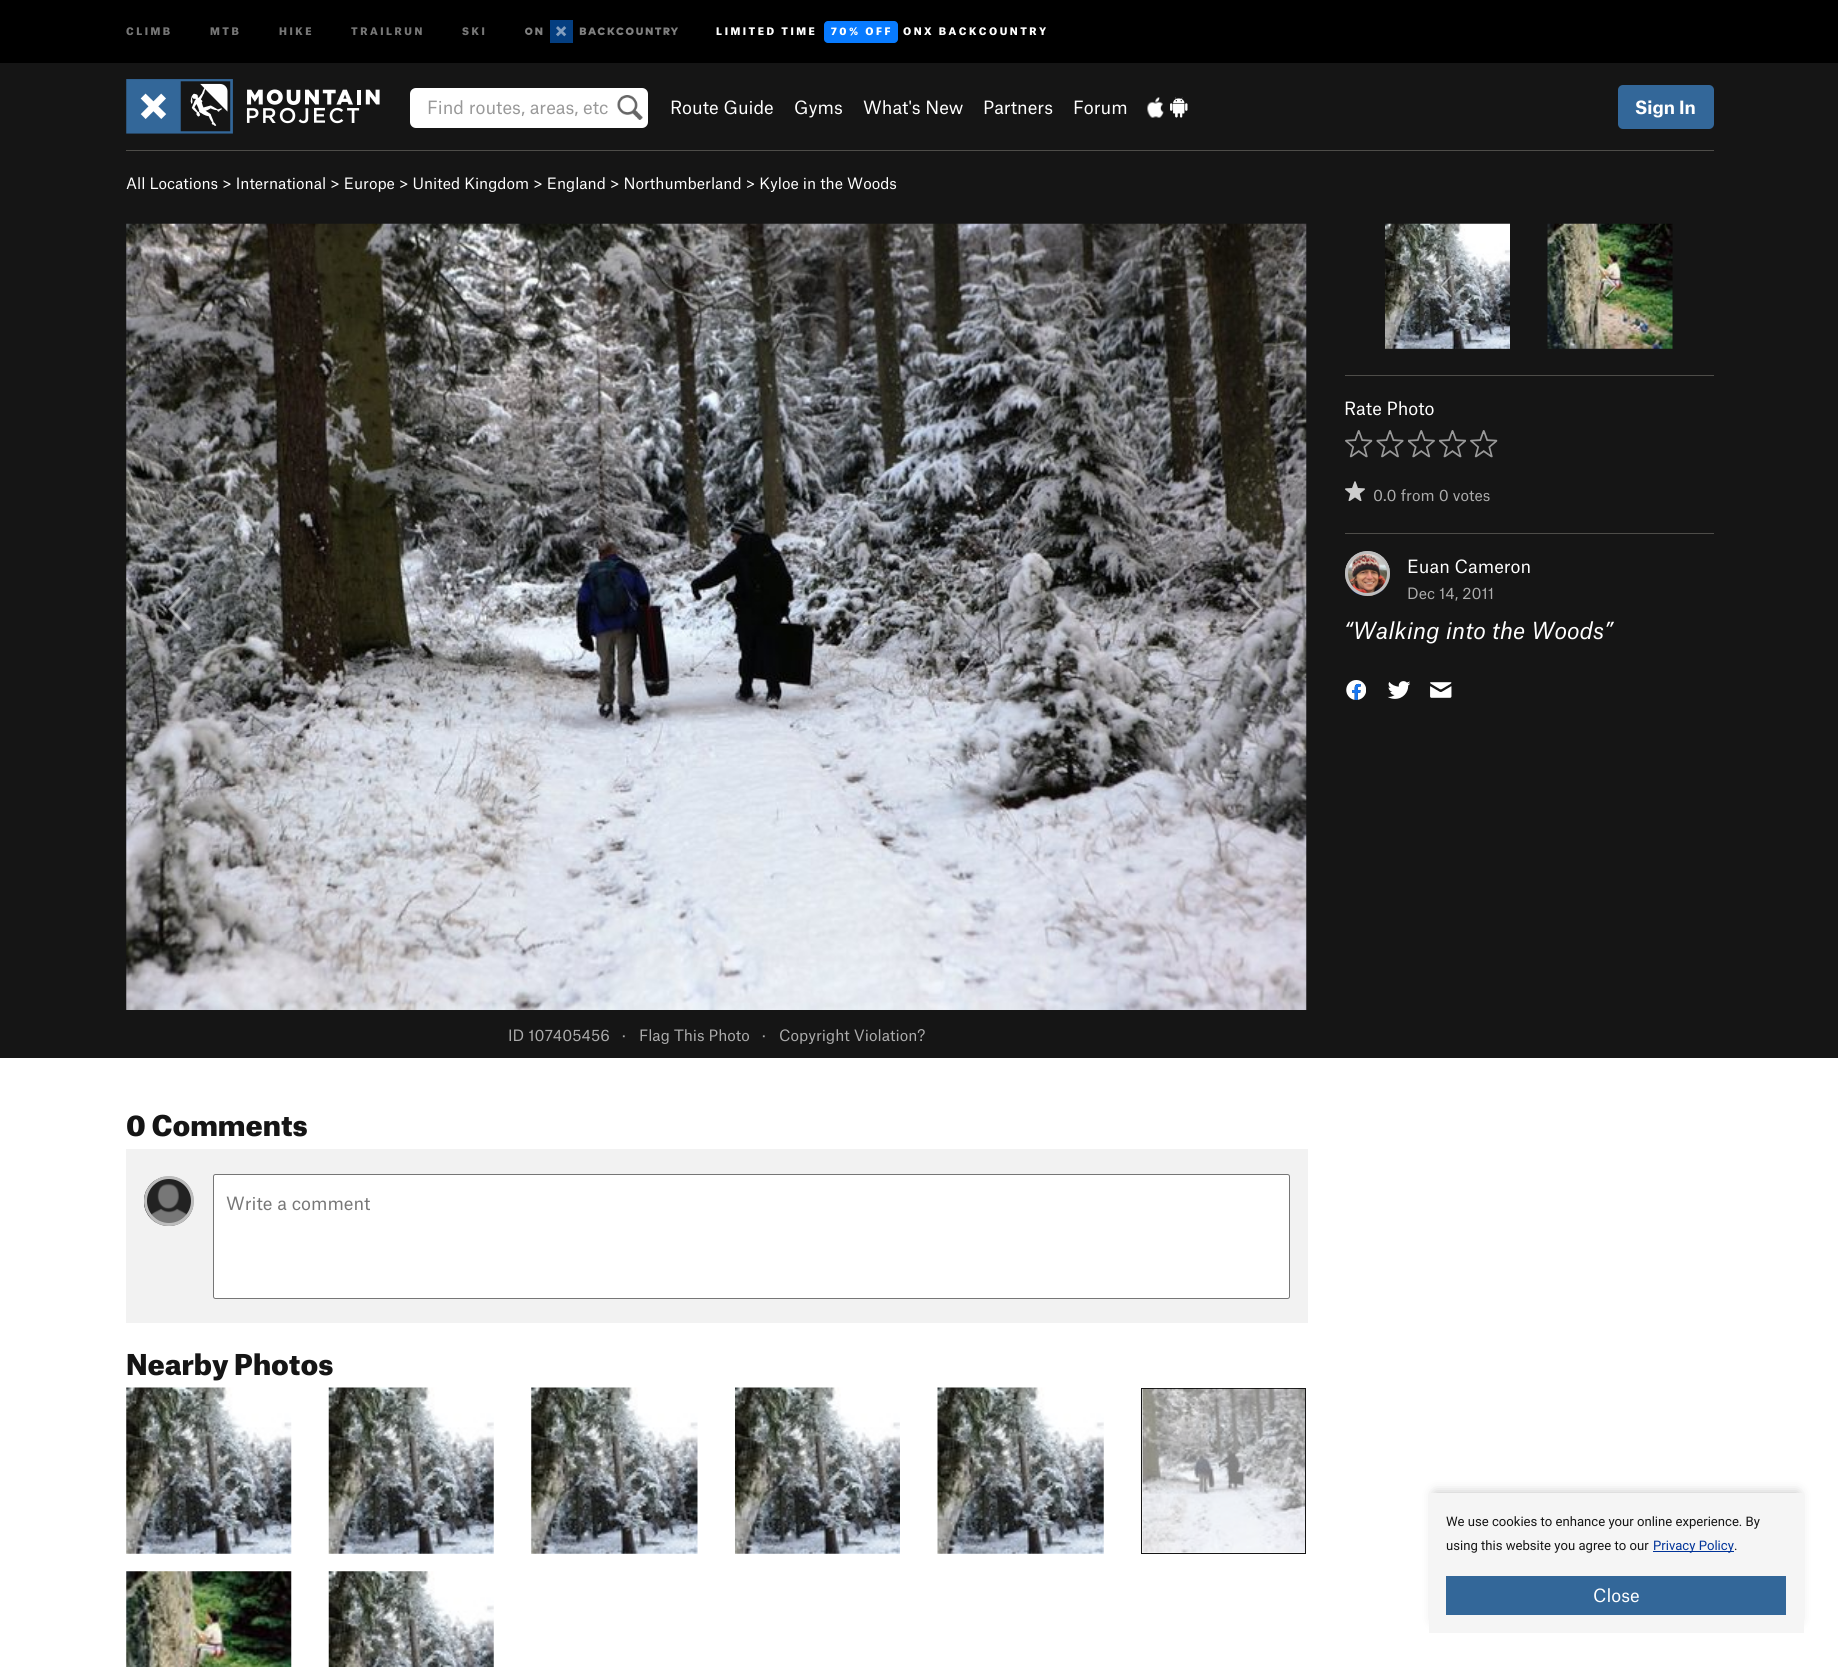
import math
import cairo

surface = cairo.ImageSurface(cairo.FORMAT_RGB24, 1838, 1667)
ctx = cairo.Context(surface)
options = cairo.FontOptions()
options.set_hint_metrics(cairo.HINT_METRICS_OFF)
options.set_hint_style(cairo.HINT_STYLE_NONE)
ctx.set_font_options(options)
ctx.set_miter_limit(4)


def set_color(code):
    ctx.set_source_rgb(*(v / 255 for v in bytes.fromhex(code[-6:])))


def draw_text(x, y, s, family, size, color, bold=False, italic=False):
    ctx.select_font_face(family, cairo.FONT_SLANT_ITALIC if italic else cairo.FONT_SLANT_NORMAL, cairo.FONT_WEIGHT_BOLD if bold else cairo.FONT_WEIGHT_NORMAL)
    ctx.set_font_size(size)
    set_color(color)
    ctx.move_to(x, y)
    ctx.show_text(s)


def draw_spaced(x, y, s, letter, word):
    ctx.move_to(x, y)
    for ch in s:
        ctx.show_text(ch)
        ctx.rel_move_to(letter + word * (ch == ' '), 0)


def fill_rect(x, y, w, h, color):
    set_color(color)
    ctx.rectangle(x, y, w, h)
    ctx.fill()


def rounded_rect(x, y, w, h, r):
    ctx.new_sub_path()
    for i, (u, v) in enumerate([(x + w - r, y + h - r), (x + r, y + h - r), (x + r, y + r), (x + w - r, y + r)]):
        ctx.arc(u, v, r, i * math.pi / 2, (i + 1) * math.pi / 2)
    ctx.close_path()


def draw_shadow(x, y, w, h, r, blur, alpha):
    ctx.push_group_with_content(cairo.CONTENT_ALPHA)
    ctx.set_operator(cairo.OPERATOR_SOURCE)
    for i in range(15, -16, -2):
        e = blur * i / 6
        if min(w, h) + 2 * e > 0:
            ctx.set_source_rgba(0, 0, 0, alpha * math.erfc((i - 1) / 8.5) / 2)
            rounded_rect(x - e, y - e, w + 2 * e, h + 2 * e, max(0, min(r + e + blur * .6, min(w, h) / 2 + e)))
            ctx.fill()
    ctx.mask(ctx.pop_group())


def draw_image(path, x, y, w, h):
    ctx.save()
    ctx.set_source_surface(cairo.ImageSurface.create_from_png(path), x, y)
    ctx.rectangle(x, y, w, h)
    ctx.fill()
    ctx.restore()


set_color("#ffffff")
ctx.paint()
fill_rect(0, 63, 1838, 995, "#151515")
fill_rect(0, 0, 1838, 63, "#000000")
ctx.select_font_face("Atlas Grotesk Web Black")
ctx.set_font_size(10)
set_color("#777777")
draw_spaced(126, 35, "CLIMB", 2.5, 0)
draw_spaced(210, 35, "MTB", 2.5, 0)
draw_spaced(279, 35, "HIKE", 2.5, 0)
draw_spaced(351, 35, "TRAILRUN", 2.5, 0)
draw_spaced(462, 35, "SKI", 2.5, 0)
draw_image("assets/img1.png", 525, 20, 153, 23)
set_color("#ffffff")
draw_spaced(716, 35, "LIMITED TIME", 2.5, 0)
set_color("#087bff")
rounded_rect(824, 21, 74, 22, 4)
ctx.fill()
set_color("#ffffff")
draw_spaced(831, 35, "70% OFF", 2.5, 0)
draw_spaced(903, 35, "ONX BACKCOUNTRY", 2.5, 0)
draw_image("assets/img2.png", 126, 79, 254, 55)
rounded_rect(410, 88, 238, 40, 6)
ctx.fill()
draw_image("assets/img3.png", 617, 95, 26, 25)
draw_text(427, 114, "Find routes, areas, etc", "Atlas Grotesk Web", 17.5, "#999999")
draw_text(670, 114, "Route Guide", "Atlas Grotesk Web", 17.5, "#ffffff")
draw_text(794, 114, "Gyms", "Atlas Grotesk Web", 17.5, "#ffffff")
draw_text(863, 114, "What's New", "Atlas Grotesk Web", 17.5, "#ffffff")
draw_text(983, 114, "Partners", "Atlas Grotesk Web", 17.5, "#ffffff")
draw_text(1073, 114, "Forum", "Atlas Grotesk Web", 17.5, "#ffffff")
draw_image("assets/img4.png", 1147, 97, 17, 21)
draw_image("assets/img5.png", 1170, 97, 18, 21)
set_color("#336799")
rounded_rect(1618, 85, 96, 44, 5)
ctx.fill()
draw_text(1635, 114, "Sign In", "Atlas Grotesk Web", 17.5, "#ffffff", bold=True)
fill_rect(126, 150, 1588, 1, "#4e4d49")
draw_text(126, 189, "All Locations > International > Europe > United Kingdom > England > Northumberland > Kyloe in the Woods", "Atlas Grotesk Web", 15, "#ffffff")
draw_image("assets/img6.png", 1385, 223, 125, 126)
draw_image("assets/img7.png", 1439, 274, 14, 24)
draw_image("assets/img8.png", 1547, 223, 126, 126)
draw_image("assets/img9.png", 1604, 274, 14, 24)
fill_rect(1345, 375, 369, 1, "#4e4d49")
draw_text(1344, 415, "Rate Photo", "Atlas Grotesk Web", 17.5, "#ffffff")
draw_image("assets/img10.png", 1345, 430, 28, 28)
draw_image("assets/img11.png", 1376, 430, 28, 28)
draw_image("assets/img12.png", 1408, 430, 27, 28)
draw_image("assets/img13.png", 1439, 430, 27, 28)
draw_image("assets/img10.png", 1470, 430, 28, 28)
draw_image("assets/img14.png", 1345, 481, 20, 20)
draw_text(1373, 501, "0.0 from 0 votes", "Atlas Grotesk Web", 15, "#acacac")
fill_rect(1345, 533, 369, 1, "#4e4d49")
draw_image("assets/img15.png", 1345, 551, 45, 46)
ctx.arc(1367.5, 573.5, 21, 0, 2 * math.pi)
set_color("#bdbdbd")
ctx.set_line_width(3)
ctx.stroke()
draw_text(1407, 573, "Euan Cameron", "Atlas Grotesk Web", 17.5, "#ffffff")
draw_text(1407, 599, "Dec 14, 2011", "Atlas Grotesk Web", 15, "#acacac")
draw_text(1344, 639, "“Walking into the Woods”", "Atlas Grotesk Web", 22.5, "#ffffff", italic=True)
draw_image("assets/img16.png", 1346, 680, 20, 20)
draw_image("assets/img17.png", 1387, 681, 23, 18)
draw_image("assets/img18.png", 1430, 682, 22, 16)
draw_image("assets/img19.png", 126, 223, 1181, 787)
draw_image("assets/img20.png", 165, 584, 29, 49)
draw_image("assets/img21.png", 1238, 584, 28, 49)
draw_text(508, 1041, "ID 107405456", "Atlas Grotesk Web", 15, "#acacac")
draw_text(622, 1041, "·", "Atlas Grotesk Web", 15, "#acacac")
draw_text(639, 1041, "Flag This Photo", "Atlas Grotesk Web", 15, "#acacac")
draw_text(762, 1041, "·", "Atlas Grotesk Web", 15, "#acacac")
draw_text(779, 1041, "Copyright Violation?", "Atlas Grotesk Web", 15, "#acacac")
draw_text(126, 1136, "0 Comments", "Atlas Grotesk Web Black", 27.5, "#151515")
fill_rect(126, 1149, 1182, 174, "#f2f2f2")
draw_image("assets/img22.png", 144, 1176, 50, 50)
ctx.arc(169, 1201, 23.5, 0, 2 * math.pi)
set_color("#bdbdbd")
ctx.stroke()
set_color("#ffffff")
rounded_rect(213.5, 1174.5, 1076, 124, 2)
ctx.fill_preserve()
set_color("#767676")
ctx.set_line_width(1)
ctx.stroke()
draw_text(226, 1210, "Write a comment", "Atlas Grotesk Web", 17.5, "#777777")
draw_text(126, 1375, "Nearby Photos", "Atlas Grotesk Web Black", 27.5, "#151515")
draw_image("assets/img23.png", 126, 1387, 166, 167)
draw_image("assets/img24.png", 328, 1387, 166, 167)
draw_image("assets/img25.png", 531, 1387, 167, 167)
draw_image("assets/img26.png", 735, 1387, 165, 167)
draw_image("assets/img27.png", 937, 1387, 167, 167)
ctx.rectangle(1141.5, 1388.5, 164, 165)
ctx.stroke()
draw_image("assets/img28.png", 1142, 1388, 163, 165)
draw_image("assets/img29.png", 126, 1571, 166, 96)
draw_image("assets/img30.png", 328, 1571, 166, 96)
set_color("#000000")
draw_shadow(1435, 1493, 363, 127, 0, 6, 0.25)
fill_rect(1429, 1493, 375, 140, "#f5f5f5")
draw_text(1446, 1526, "We use cookies to enhance your online experience. By", "Roboto", 13.1, "#151515")
draw_text(1446, 1550, "using this website you agree to our", "Roboto", 13.1, "#151515")
fill_rect(1653, 1551, 81, 1, "#003399")
draw_text(1653, 1550, "Privacy Policy", "Roboto", 13.1, "#003399")
draw_text(1734, 1550, ".", "Roboto", 13.1, "#151515")
fill_rect(1446, 1576, 340, 39, "#336799")
draw_text(1593, 1602, "Close", "Atlas Grotesk Web", 17.5, "#ffffff")
surface.write_to_png("output.png")
